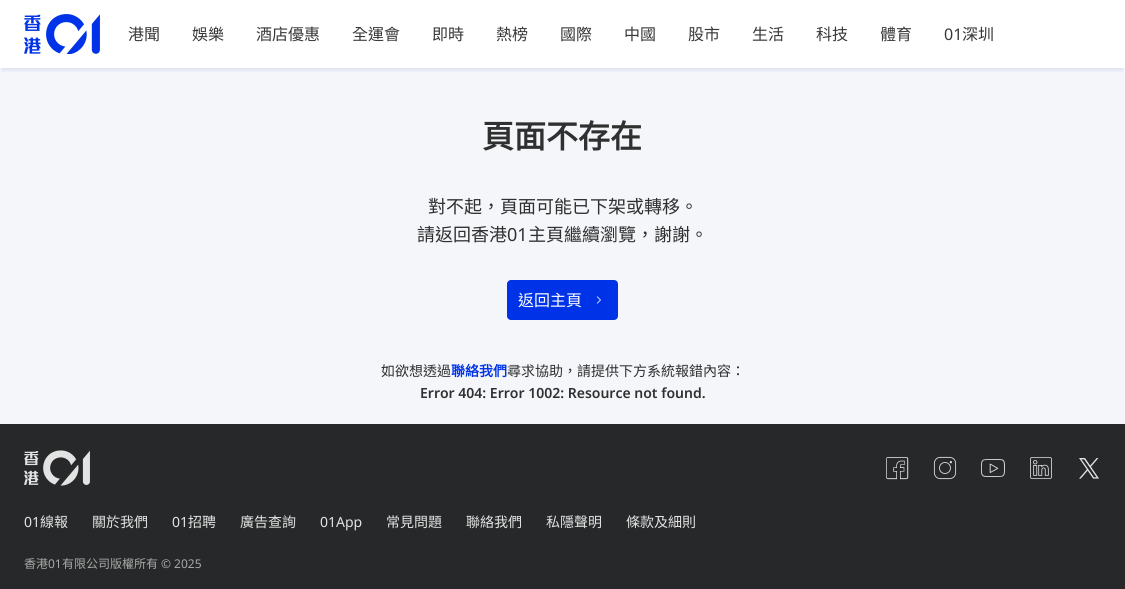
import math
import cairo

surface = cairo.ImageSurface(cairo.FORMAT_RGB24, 1125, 589)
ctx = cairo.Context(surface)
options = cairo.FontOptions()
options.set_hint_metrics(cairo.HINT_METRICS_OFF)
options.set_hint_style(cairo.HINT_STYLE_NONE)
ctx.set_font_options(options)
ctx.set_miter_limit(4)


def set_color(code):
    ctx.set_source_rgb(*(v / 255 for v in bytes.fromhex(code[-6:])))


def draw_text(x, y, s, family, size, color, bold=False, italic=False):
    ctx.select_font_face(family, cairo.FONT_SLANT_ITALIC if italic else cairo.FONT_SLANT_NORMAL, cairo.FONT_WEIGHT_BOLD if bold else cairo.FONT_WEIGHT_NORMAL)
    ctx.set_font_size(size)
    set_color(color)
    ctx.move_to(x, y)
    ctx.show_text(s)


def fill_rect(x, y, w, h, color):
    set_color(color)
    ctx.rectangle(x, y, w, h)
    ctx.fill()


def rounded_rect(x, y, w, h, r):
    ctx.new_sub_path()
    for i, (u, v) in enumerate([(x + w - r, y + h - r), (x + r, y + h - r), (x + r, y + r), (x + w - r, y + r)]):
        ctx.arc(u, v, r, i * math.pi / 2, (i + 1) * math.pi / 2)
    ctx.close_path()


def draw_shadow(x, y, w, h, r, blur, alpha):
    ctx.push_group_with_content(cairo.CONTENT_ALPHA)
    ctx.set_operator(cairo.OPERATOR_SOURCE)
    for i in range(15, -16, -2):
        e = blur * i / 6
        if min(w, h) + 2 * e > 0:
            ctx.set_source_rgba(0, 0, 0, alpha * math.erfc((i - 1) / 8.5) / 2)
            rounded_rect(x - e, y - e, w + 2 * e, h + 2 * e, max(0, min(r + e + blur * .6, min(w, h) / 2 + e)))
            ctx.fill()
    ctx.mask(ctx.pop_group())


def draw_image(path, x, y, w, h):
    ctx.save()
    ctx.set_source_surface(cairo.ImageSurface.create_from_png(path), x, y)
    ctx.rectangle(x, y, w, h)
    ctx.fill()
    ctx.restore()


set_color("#f5f6fa")
ctx.paint()
fill_rect(0, 0, 1125, 68, "#ffffff")
draw_image("assets/img1.png", 24, 14, 76, 40)
draw_text(128, 40, "港聞", "Noto Sans CJK HK", 16, "#383838")
draw_text(192, 40, "娛樂", "Noto Sans CJK HK", 16, "#383838")
draw_text(256, 40, "酒店優惠", "Noto Sans CJK HK", 16, "#383838")
draw_text(352, 40, "全運會", "Noto Sans CJK HK", 16, "#383838")
draw_text(432, 40, "即時", "Noto Sans CJK HK", 16, "#383838")
draw_text(496, 40, "熱榜", "Noto Sans CJK HK", 16, "#383838")
draw_text(560, 40, "國際", "Noto Sans CJK HK", 16, "#383838")
draw_text(624, 40, "中國", "Noto Sans CJK HK", 16, "#383838")
draw_text(688, 40, "股市", "Noto Sans CJK HK", 16, "#383838")
draw_text(752, 40, "生活", "Noto Sans CJK HK", 16, "#383838")
draw_text(816, 40, "科技", "Noto Sans CJK HK", 16, "#383838")
draw_text(880, 40, "體育", "Noto Sans CJK HK", 16, "#383838")
draw_text(944, 40, "01", "Noto Sans", 16, "#383838")
draw_text(962, 40, "深圳", "Noto Sans CJK HK", 16, "#383838")
ctx.save()
ctx.rectangle(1, 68, 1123, 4)
ctx.clip()
set_color("#00219b")
draw_shadow(2, 66, 1121, 4, 0, 2.5, 0.12)
ctx.restore()
draw_text(482, 148, "頁面不存在", "Noto Sans CJK HK", 32, "#2f3030", bold=True)
draw_text(428, 213, "對不起，頁面可能已下架或轉移。", "Noto Sans CJK HK", 18, "#2f3030")
draw_text(417, 241, "請返回香港", "Noto Sans CJK HK", 18, "#2f3030")
draw_text(507, 241, "01", "Noto Sans", 18, "#2f3030")
draw_text(528, 241, "主頁繼續瀏覽，謝謝。", "Noto Sans CJK HK", 18, "#2f3030")
set_color("#0033e8")
rounded_rect(507, 280, 111, 40, 4)
ctx.fill()
draw_text(518, 306, "返回主頁", "Noto Sans CJK HK", 16, "#ffffff")
draw_image("assets/img2.png", 596, 296, 5, 8)
draw_text(381, 376, "如欲想透過", "Noto Sans CJK HK", 14, "#2f3030")
draw_text(451, 376, "聯絡我們", "Noto Sans CJK HK", 14, "#0033e8", bold=True)
draw_text(507, 376, "尋求協助，請提供下方系統報錯內容：", "Noto Sans CJK HK", 14, "#2f3030")
draw_text(420, 398, "Error 404: Error 1002: Resource not found.", "Noto Sans SemiBold", 14, "#2f3030")
fill_rect(0, 424, 1125, 165, "#272829")
draw_image("assets/img3.png", 24, 450, 66, 36)
draw_image("assets/img4.png", 886, 457, 23, 23)
draw_image("assets/img5.png", 933, 456, 24, 24)
draw_image("assets/img6.png", 981, 459, 24, 19)
draw_image("assets/img7.png", 1030, 457, 22, 22)
draw_image("assets/img8.png", 1079, 458, 20, 21)
draw_text(24, 527, "01", "Noto Sans", 14, "#e3e3e3")
draw_text(40, 527, "線報", "Noto Sans CJK HK", 14, "#e3e3e3")
draw_text(92, 527, "關於我們", "Noto Sans CJK HK", 14, "#e3e3e3")
draw_text(172, 527, "01", "Noto Sans", 14, "#e3e3e3")
draw_text(188, 527, "招聘", "Noto Sans CJK HK", 14, "#e3e3e3")
draw_text(240, 527, "廣告查詢", "Noto Sans CJK HK", 14, "#e3e3e3")
draw_text(320, 527, "01App", "Noto Sans", 14, "#e3e3e3")
draw_text(386, 527, "常見問題", "Noto Sans CJK HK", 14, "#e3e3e3")
draw_text(466, 527, "聯絡我們", "Noto Sans CJK HK", 14, "#e3e3e3")
draw_text(546, 527, "私隱聲明", "Noto Sans CJK HK", 14, "#e3e3e3")
draw_text(626, 527, "條款及細則", "Noto Sans CJK HK", 14, "#e3e3e3")
draw_text(24, 568, "香港", "Noto Sans CJK HK", 12, "#a9a9a9")
draw_text(48, 568, "01", "Noto Sans", 12, "#a9a9a9")
draw_text(62, 568, "有限公司版權所有", "Noto Sans CJK HK", 12, "#a9a9a9")
draw_text(161, 568, "© 2025", "Noto Sans", 12, "#a9a9a9")
surface.write_to_png("output.png")
